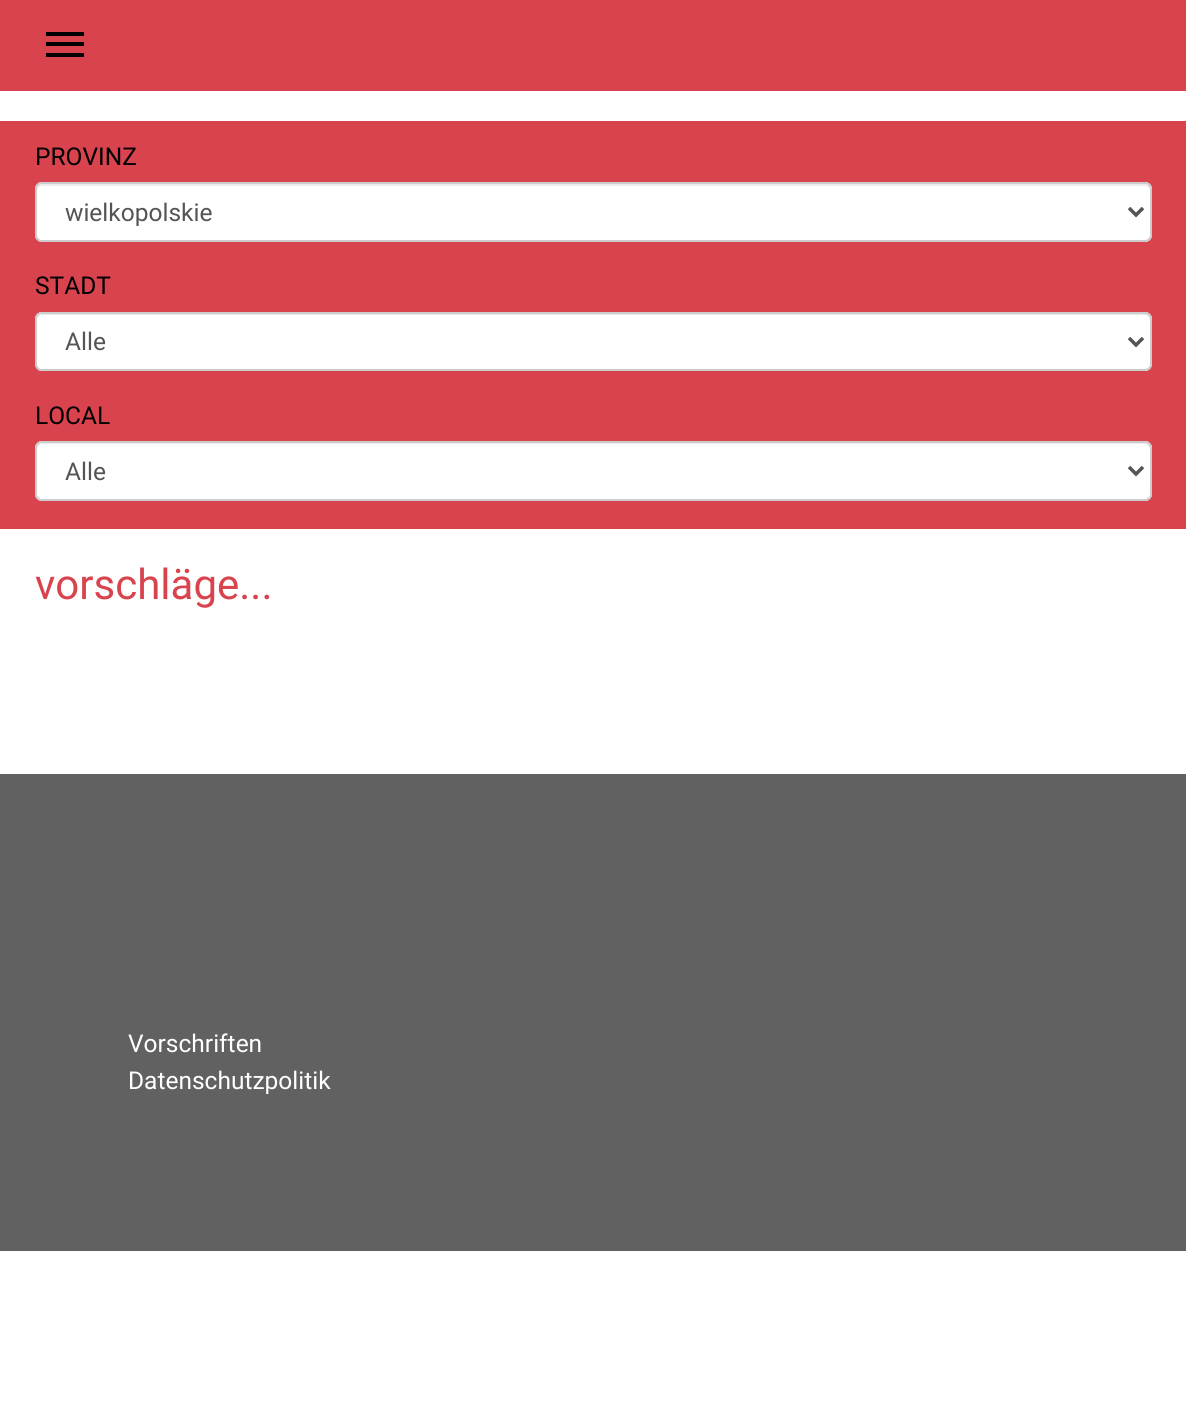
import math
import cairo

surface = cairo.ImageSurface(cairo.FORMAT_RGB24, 1186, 1412)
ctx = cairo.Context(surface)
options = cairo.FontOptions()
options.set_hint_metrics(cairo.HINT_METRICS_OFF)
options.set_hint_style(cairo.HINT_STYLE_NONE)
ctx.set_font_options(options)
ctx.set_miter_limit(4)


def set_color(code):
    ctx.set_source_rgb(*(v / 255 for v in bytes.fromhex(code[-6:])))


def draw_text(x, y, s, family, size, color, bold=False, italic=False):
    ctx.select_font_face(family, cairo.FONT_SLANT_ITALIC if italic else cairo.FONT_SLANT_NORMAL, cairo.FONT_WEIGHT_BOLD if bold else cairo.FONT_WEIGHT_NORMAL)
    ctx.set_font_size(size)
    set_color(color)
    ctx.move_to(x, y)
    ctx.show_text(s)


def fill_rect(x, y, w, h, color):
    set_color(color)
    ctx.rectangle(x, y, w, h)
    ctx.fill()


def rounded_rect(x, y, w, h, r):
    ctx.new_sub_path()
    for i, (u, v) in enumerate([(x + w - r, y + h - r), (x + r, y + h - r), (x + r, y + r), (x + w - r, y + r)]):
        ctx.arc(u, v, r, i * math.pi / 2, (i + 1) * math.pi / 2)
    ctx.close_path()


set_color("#ffffff")
ctx.paint()
fill_rect(0, 0, 1186, 91, "#d8434e")
fill_rect(46, 32, 38, 4, "#000000")
fill_rect(46, 42, 38, 4, "#000000")
fill_rect(46, 53, 38, 4, "#000000")
fill_rect(0, 121, 1186, 408, "#d8434e")
draw_text(35, 165, "PROVINZ", "Roboto", 24.5, "#000000")
set_color("#ffffff")
rounded_rect(35, 182, 1117, 60, 7)
ctx.fill()
set_color("#ececec")
ctx.new_path()
ctx.move_to(42, 186)
ctx.line_to(1144, 186)
ctx.curve_to(1147, 186, 1150, 188, 1150, 191)
ctx.line_to(1150, 189)
ctx.curve_to(1150, 186, 1148, 184, 1145, 184)
ctx.line_to(42, 184)
ctx.curve_to(39, 184, 37, 186, 37, 189)
ctx.line_to(37, 191)
ctx.curve_to(37, 188, 39, 186, 42, 186)
ctx.close_path()
ctx.fill()
rounded_rect(36, 183, 1115, 58, 6)
set_color("#cccccc")
ctx.stroke()
ctx.new_path()
ctx.move_to(1129, 208)
ctx.line_to(1136, 215)
ctx.line_to(1143, 208)
set_color("#555555")
ctx.set_line_width(3.5)
ctx.stroke()
draw_text(65, 221, "wielkopolskie", "Roboto", 24.5, "#555555")
draw_text(35, 294, "STADT", "Roboto", 24.5, "#000000")
set_color("#ffffff")
rounded_rect(35, 312, 1117, 59, 7)
ctx.fill()
set_color("#ececec")
ctx.new_path()
ctx.move_to(42, 315)
ctx.line_to(1144, 315)
ctx.curve_to(1147, 315, 1150, 317, 1150, 320)
ctx.line_to(1150, 318)
ctx.curve_to(1150, 315, 1148, 313, 1145, 313)
ctx.line_to(42, 313)
ctx.curve_to(39, 313, 37, 315, 37, 318)
ctx.line_to(37, 320)
ctx.curve_to(37, 317, 39, 315, 42, 315)
ctx.close_path()
ctx.fill()
rounded_rect(36, 313, 1115, 57, 6)
set_color("#cccccc")
ctx.set_line_width(2)
ctx.stroke()
ctx.new_path()
ctx.move_to(1129, 338)
ctx.line_to(1136, 345)
ctx.line_to(1143, 338)
set_color("#555555")
ctx.set_line_width(3.5)
ctx.stroke()
draw_text(65, 350, "Alle", "Roboto", 24.5, "#555555")
draw_text(35, 424, "LOCAL", "Roboto", 24.5, "#000000")
set_color("#ffffff")
rounded_rect(35, 441, 1117, 60, 7)
ctx.fill()
set_color("#ececec")
ctx.new_path()
ctx.move_to(42, 444)
ctx.line_to(1144, 444)
ctx.curve_to(1147, 444, 1150, 447, 1150, 450)
ctx.line_to(1150, 448)
ctx.curve_to(1150, 445, 1148, 443, 1145, 443)
ctx.line_to(42, 443)
ctx.curve_to(39, 443, 37, 445, 37, 448)
ctx.line_to(37, 450)
ctx.curve_to(37, 447, 39, 444, 42, 444)
ctx.close_path()
ctx.fill()
rounded_rect(36, 442, 1115, 58, 6)
set_color("#cccccc")
ctx.set_line_width(2)
ctx.stroke()
ctx.new_path()
ctx.move_to(1129, 467)
ctx.line_to(1136, 474)
ctx.line_to(1143, 467)
set_color("#555555")
ctx.set_line_width(3.5)
ctx.stroke()
draw_text(65, 480, "Alle", "Roboto", 24.5, "#555555")
draw_text(35, 599, "vorschläge...", "Roboto", 42, "#d8434e")
fill_rect(0, 774, 1186, 477, "#616161")
draw_text(128, 1052, "Vorschriften", "Roboto", 24.5, "#ffffff")
draw_text(128, 1089, "Datenschutzpolitik", "Roboto", 24.5, "#ffffff")
surface.write_to_png("output.png")
